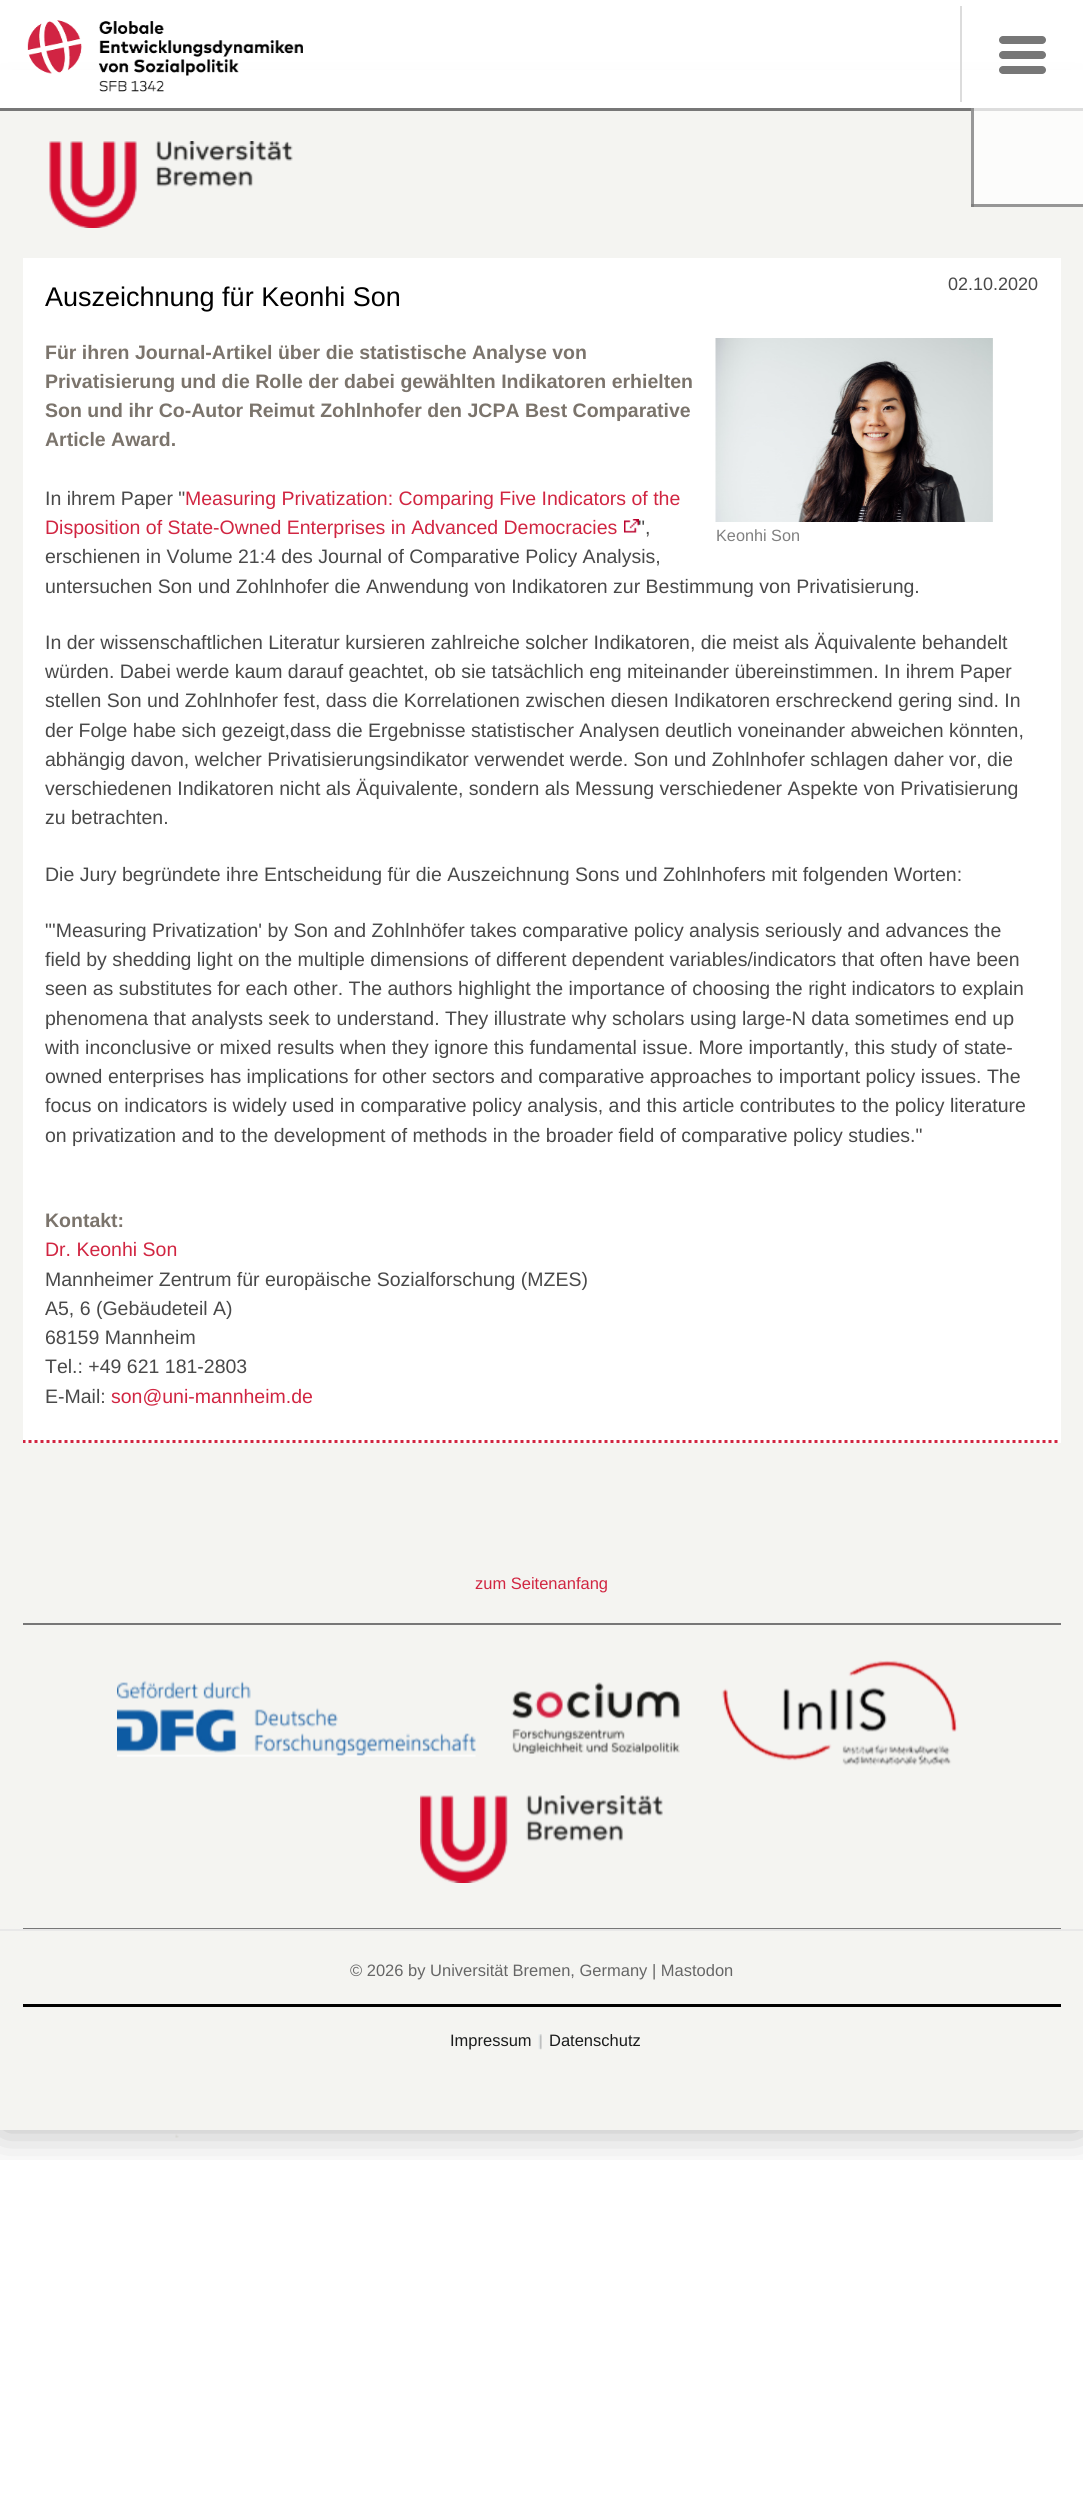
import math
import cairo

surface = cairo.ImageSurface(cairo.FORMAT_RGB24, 1083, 2514)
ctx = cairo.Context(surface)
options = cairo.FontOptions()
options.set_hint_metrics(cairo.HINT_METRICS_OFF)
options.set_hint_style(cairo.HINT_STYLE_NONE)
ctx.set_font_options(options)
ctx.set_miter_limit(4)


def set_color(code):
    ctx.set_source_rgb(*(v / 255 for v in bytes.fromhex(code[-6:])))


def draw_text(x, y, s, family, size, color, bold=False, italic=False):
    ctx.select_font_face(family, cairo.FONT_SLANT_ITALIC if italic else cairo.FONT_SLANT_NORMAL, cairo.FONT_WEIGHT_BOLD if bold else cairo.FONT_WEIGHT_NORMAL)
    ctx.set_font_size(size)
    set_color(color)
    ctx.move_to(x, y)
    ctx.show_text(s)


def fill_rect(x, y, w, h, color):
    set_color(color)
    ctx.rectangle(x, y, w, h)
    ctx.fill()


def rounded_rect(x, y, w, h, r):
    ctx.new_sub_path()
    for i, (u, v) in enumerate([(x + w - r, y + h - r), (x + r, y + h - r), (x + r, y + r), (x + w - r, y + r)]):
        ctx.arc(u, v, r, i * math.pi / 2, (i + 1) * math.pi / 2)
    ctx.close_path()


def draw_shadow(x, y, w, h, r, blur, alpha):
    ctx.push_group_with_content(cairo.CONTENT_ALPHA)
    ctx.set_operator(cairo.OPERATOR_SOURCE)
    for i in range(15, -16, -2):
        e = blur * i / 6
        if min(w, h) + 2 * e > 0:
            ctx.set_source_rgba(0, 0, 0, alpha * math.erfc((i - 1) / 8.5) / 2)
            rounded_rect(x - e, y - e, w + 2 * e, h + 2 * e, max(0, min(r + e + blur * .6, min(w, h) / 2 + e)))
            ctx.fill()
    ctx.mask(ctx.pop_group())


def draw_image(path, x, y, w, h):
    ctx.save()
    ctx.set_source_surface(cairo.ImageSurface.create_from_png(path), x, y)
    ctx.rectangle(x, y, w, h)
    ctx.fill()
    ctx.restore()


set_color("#ffffff")
ctx.paint()
draw_image("assets/img1.png", 175, 2134, 4, 4)
ctx.save()
ctx.rectangle(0, 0, 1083, 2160)
ctx.clip()
set_color("#000000")
draw_shadow(0, 111, 1083, 2019, 0, 22.5, 0.3)
ctx.restore()
fill_rect(0, 70, 1083, 38, "#ffffff")
fill_rect(0, 108, 1083, 3, "#777777")
draw_image("assets/img2.png", 27, 20, 276, 72)
fill_rect(960, 6, 2, 96, "#dcdcdc")
set_color("#777777")
rounded_rect(999, 51, 47, 8, 4)
ctx.fill()
rounded_rect(999, 36, 47, 8, 4)
ctx.fill()
rounded_rect(999, 66, 47, 8, 4)
ctx.fill()
fill_rect(0, 111, 1083, 1818, "#f4f4f1")
ctx.set_source_rgba(1, 1, 1, 0.75)
ctx.rectangle(971, 108, 112, 96)
ctx.fill()
fill_rect(971, 204, 112, 3, "#969696")
ctx.set_source_rgba(0.467, 0.467, 0.467, 0.75)
ctx.rectangle(971, 108, 3, 99)
ctx.fill()
draw_image("assets/img3.png", 49, 141, 244, 87)
fill_rect(23, 258, 1038, 1185, "#ffffff")
draw_text(948, 290, "02.10.2020", "Liberation Sans", 18, "#494949")
draw_text(45, 306, "Auszeichnung für Keonhi Son", "Liberation Sans", 27, "#000000")
ctx.save()
ctx.rectangle(23, 258, 1038, 1208)
ctx.clip()
ctx.new_path()
ctx.move_to(22.5, 1441.5)
ctx.line_to(1060.5, 1441.5)
set_color("#d12541")
ctx.set_line_width(3)
ctx.set_dash([3, 3])
ctx.stroke()
ctx.restore()
draw_text(45, 359, "Für ihren Journal-Artikel über die statistische Analyse von", "Liberation Sans", 19.5, "#7b746c", bold=True)
draw_text(45, 388, "Privatisierung und die Rolle der dabei gewählten Indikatoren erhielten", "Liberation Sans", 19.5, "#7b746c", bold=True)
draw_text(45, 417, "Son und ihr Co-Autor Reimut Zohlnhofer den JCPA Best Comparative", "Liberation Sans", 19.5, "#7b746c", bold=True)
draw_text(45, 446, "Article Award.", "Liberation Sans", 19.5, "#7b746c", bold=True)
draw_text(45, 505, "In ihrem Paper \"", "Liberation Sans", 19.5, "#494949")
draw_text(185, 505, "Measuring Privatization: Comparing Five Indicators of the", "Liberation Sans", 19.5, "#d12541")
draw_text(45, 534, "Disposition of State-Owned Enterprises in Advanced Democracies", "Liberation Sans", 19.5, "#d12541")
draw_image("assets/img4.png", 624, 519, 15, 14)
draw_text(638, 534, "\",", "Liberation Sans", 19.5, "#494949")
draw_text(45, 563, "erschienen in Volume 21:4 des Journal of Comparative Policy Analysis,", "Liberation Sans", 19.5, "#494949")
draw_text(45, 593, "untersuchen Son und Zohlnhofer die Anwendung von Indikatoren zur Bestimmung von Privatisierung.", "Liberation Sans", 19.5, "#494949")
draw_text(45, 649, "In der wissenschaftlichen Literatur kursieren zahlreiche solcher Indikatoren, die meist als Äquivalente behandelt", "Liberation Sans", 19.5, "#494949")
draw_text(45, 678, "würden. Dabei werde kaum darauf geachtet, ob sie tatsächlich eng miteinander übereinstimmen. In ihrem Paper", "Liberation Sans", 19.5, "#494949")
draw_text(45, 707, "stellen Son und Zohlnhofer fest, dass die Korrelationen zwischen diesen Indikatoren erschreckend gering sind. In", "Liberation Sans", 19.5, "#494949")
draw_text(45, 737, "der Folge habe sich gezeigt,dass die Ergebnisse statistischer Analysen deutlich voneinander abweichen könnten,", "Liberation Sans", 19.5, "#494949")
draw_text(45, 766, "abhängig davon, welcher Privatisierungsindikator verwendet werde. Son und Zohlnhofer schlagen daher vor, die", "Liberation Sans", 19.5, "#494949")
draw_text(45, 795, "verschiedenen Indikatoren nicht als Äquivalente, sondern als Messung verschiedener Aspekte von Privatisierung", "Liberation Sans", 19.5, "#494949")
draw_text(45, 824, "zu betrachten.", "Liberation Sans", 19.5, "#494949")
draw_text(45, 881, "Die Jury begründete ihre Entscheidung für die Auszeichnung Sons und Zohlnhofers mit folgenden Worten:", "Liberation Sans", 19.5, "#494949")
draw_text(45, 937, "\"'Measuring Privatization' by Son and Zohlnhöfer takes comparative policy analysis seriously and advances the", "Liberation Sans", 19.5, "#494949")
draw_text(45, 966, "field by shedding light on the multiple dimensions of different dependent variables/indicators that often have been", "Liberation Sans", 19.5, "#494949")
draw_text(45, 995, "seen as substitutes for each other. The authors highlight the importance of choosing the right indicators to explain", "Liberation Sans", 19.5, "#494949")
draw_text(45, 1025, "phenomena that analysts seek to understand. They illustrate why scholars using large-N data sometimes end up", "Liberation Sans", 19.5, "#494949")
draw_text(45, 1054, "with inconclusive or mixed results when they ignore this fundamental issue. More importantly, this study of state-", "Liberation Sans", 19.5, "#494949")
draw_text(45, 1083, "owned enterprises has implications for other sectors and comparative approaches to important policy issues. The", "Liberation Sans", 19.5, "#494949")
draw_text(45, 1112, "focus on indicators is widely used in comparative policy analysis, and this article contributes to the policy literature", "Liberation Sans", 19.5, "#494949")
draw_text(45, 1142, "on privatization and to the development of methods in the broader field of comparative policy studies.\"", "Liberation Sans", 19.5, "#494949")
draw_text(45, 1227, "Kontakt:", "Liberation Sans", 19.5, "#7b746c", bold=True)
draw_text(45, 1256, "Dr. Keonhi Son", "Liberation Sans", 19.5, "#d12541")
draw_text(45, 1286, "Mannheimer Zentrum für europäische Sozialforschung (MZES)", "Liberation Sans", 19.5, "#494949")
draw_text(45, 1315, "A5, 6 (Gebäudeteil A)", "Liberation Sans", 19.5, "#494949")
draw_text(45, 1344, "68159 Mannheim", "Liberation Sans", 19.5, "#494949")
draw_text(45, 1373, "Tel.: +49 621 181-2803", "Liberation Sans", 19.5, "#494949")
draw_text(45, 1403, "E-Mail:", "Liberation Sans", 19.5, "#494949")
draw_text(111, 1403, "son@uni-mannheim.de", "Liberation Sans", 19.5, "#d12541")
draw_image("assets/img5.png", 715, 338, 278, 184)
draw_text(716, 541, "Keonhi Son", "Liberation Sans", 16.25, "#808080")
draw_text(475, 1589, "zum Seitenanfang", "Liberation Sans", 16.5, "#d12541")
fill_rect(23, 1623, 1038, 2, "#777777")
fill_rect(23, 1928, 1038, 1, "#777777")
draw_image("assets/img6.png", 117, 1680, 359, 77)
draw_image("assets/img7.png", 511, 1682, 169, 72)
draw_image("assets/img8.png", 721, 1660, 237, 106)
draw_image("assets/img9.png", 420, 1795, 243, 88)
fill_rect(0, 1931, 1083, 199, "#f4f4f1")
fill_rect(0, 1929, 1083, 2, "#e8e8e8")
fill_rect(23, 2004, 1038, 3, "#000000")
draw_text(350, 1976, "© 2026 by Universität Bremen, Germany | Mastodon", "Liberation Sans", 16.5, "#666666")
draw_image("assets/img10.png", 538, 2034, 4, 16)
draw_text(450, 2046, "Impressum", "Liberation Sans", 16.5, "#1b1c1c")
draw_text(549, 2046, "Datenschutz", "Liberation Sans", 16.5, "#1b1c1c")
surface.write_to_png("output.png")
